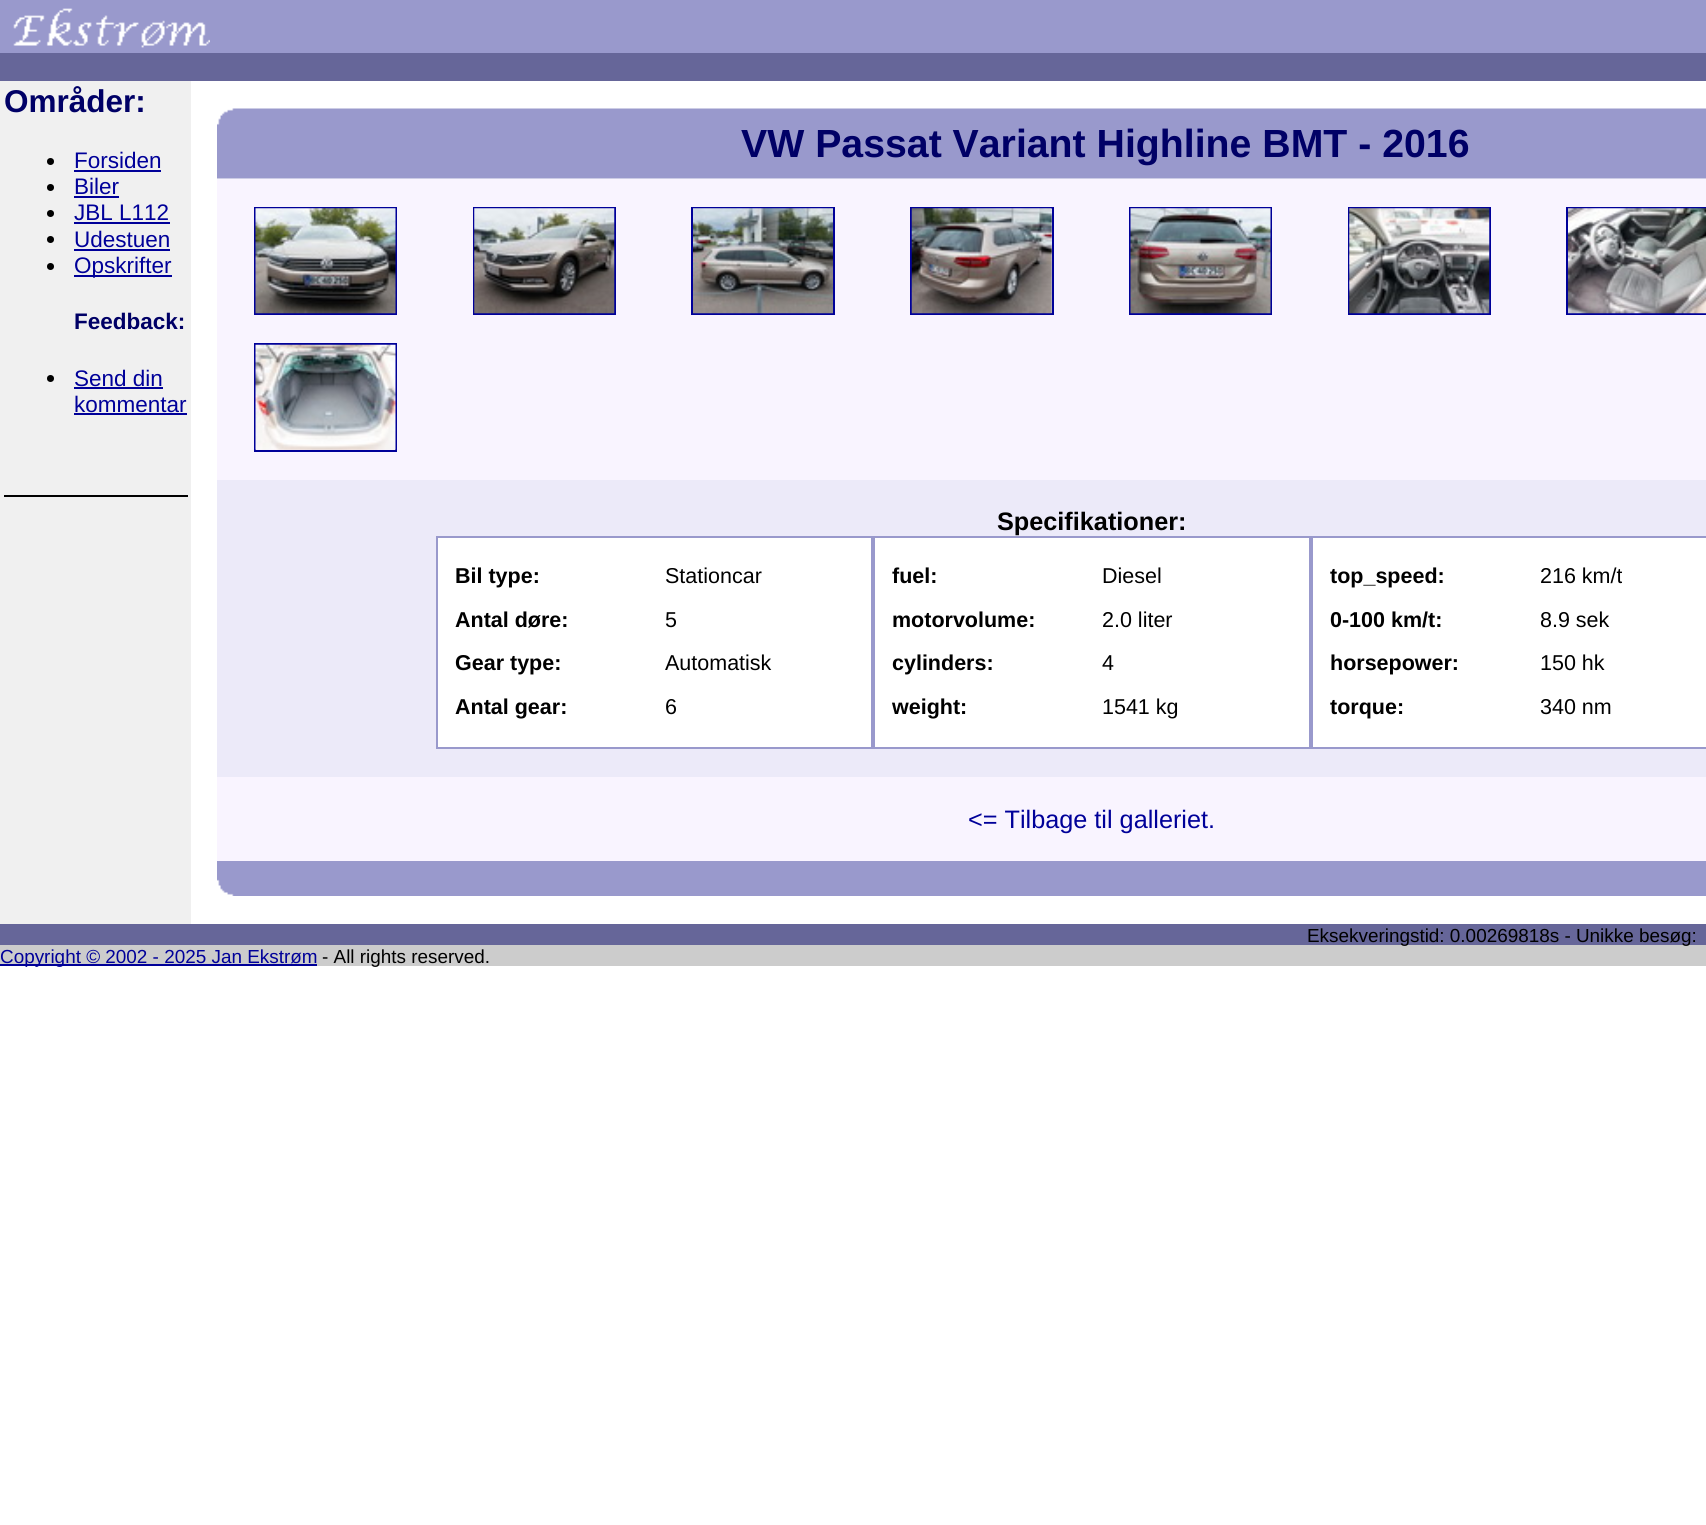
import math
import cairo

surface = cairo.ImageSurface(cairo.FORMAT_RGB24, 1706, 1525)
ctx = cairo.Context(surface)
options = cairo.FontOptions()
options.set_hint_metrics(cairo.HINT_METRICS_OFF)
options.set_hint_style(cairo.HINT_STYLE_NONE)
ctx.set_font_options(options)
ctx.set_miter_limit(4)


def set_color(code):
    ctx.set_source_rgb(*(v / 255 for v in bytes.fromhex(code[-6:])))


def draw_text(x, y, s, family, size, color, bold=False, italic=False):
    ctx.select_font_face(family, cairo.FONT_SLANT_ITALIC if italic else cairo.FONT_SLANT_NORMAL, cairo.FONT_WEIGHT_BOLD if bold else cairo.FONT_WEIGHT_NORMAL)
    ctx.set_font_size(size)
    set_color(color)
    ctx.move_to(x, y)
    ctx.show_text(s)


def fill_rect(x, y, w, h, color):
    set_color(color)
    ctx.rectangle(x, y, w, h)
    ctx.fill()


def draw_image(path, x, y, w, h):
    ctx.save()
    ctx.set_source_surface(cairo.ImageSurface.create_from_png(path), x, y)
    ctx.rectangle(x, y, w, h)
    ctx.fill()
    ctx.restore()


set_color("#ffffff")
ctx.paint()
fill_rect(0, 0, 1706, 53, "#9999cc")
draw_image("assets/img1.png", 13, 8, 197, 40)
fill_rect(0, 53, 1706, 28, "#666699")
fill_rect(0, 81, 191, 843, "#f0f0f0")
draw_text(4, 112, "Områder:", "Liberation Sans", 31.5, "#000066", bold=True)
set_color("#000000")
ctx.new_path()
ctx.arc(50.5, 161.5, 3.5, 0, 2 * math.pi)
ctx.fill()
draw_text(74, 168, "Forsiden", "Liberation Sans", 22.5, "#000099")
fill_rect(74, 170, 87, 2, "#000099")
set_color("#000000")
ctx.new_path()
ctx.arc(50.5, 187.5, 3.5, 0, 2 * math.pi)
ctx.fill()
draw_text(74, 194, "Biler", "Liberation Sans", 22.5, "#000099")
fill_rect(74, 196, 45, 2, "#000099")
set_color("#000000")
ctx.new_path()
ctx.arc(50.5, 213.5, 3.5, 0, 2 * math.pi)
ctx.fill()
draw_text(74, 220, "JBL L112", "Liberation Sans", 22.5, "#000099")
fill_rect(74, 222, 96, 2, "#000099")
set_color("#000000")
ctx.new_path()
ctx.arc(50.5, 239.5, 3.5, 0, 2 * math.pi)
ctx.fill()
draw_text(74, 247, "Udestuen", "Liberation Sans", 22.5, "#000099")
fill_rect(74, 249, 96, 2, "#000099")
set_color("#000000")
ctx.new_path()
ctx.arc(50.5, 266.5, 3.5, 0, 2 * math.pi)
ctx.fill()
fill_rect(74, 275, 98, 2, "#000099")
draw_text(74, 273, "Opskrifter", "Liberation Sans", 22.5, "#000099")
draw_text(74, 329, "Feedback:", "Liberation Sans", 22.5, "#000066", bold=True)
set_color("#000000")
ctx.new_path()
ctx.arc(50.5, 378.5, 3.5, 0, 2 * math.pi)
ctx.fill()
draw_text(74, 386, "Send din", "Liberation Sans", 22.5, "#000099")
fill_rect(74, 387, 89, 2, "#000099")
draw_text(74, 412, "kommentar", "Liberation Sans", 22.5, "#000099")
fill_rect(74, 413, 113, 2, "#000099")
fill_rect(4, 495, 184, 2, "#000000")
draw_image("assets/img2.png", 217, 108, 1489, 71)
draw_text(741, 157, "VW Passat Variant Highline BMT - 2016", "Liberation Sans", 39.25, "#000066", bold=True)
fill_rect(217, 179, 1489, 28, "#f9f4ff")
fill_rect(217, 207, 1349, 108, "#f9f4ff")
ctx.rectangle(255, 208, 141, 106)
set_color("#000099")
ctx.stroke()
draw_image("assets/img3.png", 255, 208, 141, 106)
ctx.rectangle(474, 208, 141, 106)
ctx.stroke()
draw_image("assets/img4.png", 474, 208, 141, 106)
ctx.rectangle(692, 208, 142, 106)
ctx.stroke()
draw_image("assets/img5.png", 693, 208, 140, 106)
ctx.rectangle(911, 208, 142, 106)
ctx.stroke()
draw_image("assets/img6.png", 911, 208, 141, 106)
ctx.rectangle(1130, 208, 141, 106)
ctx.stroke()
draw_image("assets/img7.png", 1130, 208, 141, 106)
ctx.rectangle(1349, 208, 141, 106)
ctx.stroke()
draw_image("assets/img8.png", 1349, 208, 141, 106)
ctx.rectangle(1567, 208, 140, 106)
ctx.stroke()
draw_image("assets/img9.png", 1568, 208, 138, 106)
fill_rect(217, 315, 1489, 165, "#f9f4ff")
ctx.rectangle(255, 344, 141, 107)
set_color("#000099")
ctx.stroke()
draw_image("assets/img10.png", 255, 344, 141, 106)
fill_rect(217, 480, 1489, 56, "#eceaf9")
draw_text(997, 530, "Specifikationer:", "Liberation Sans", 25.25, "#000000", bold=True)
fill_rect(217, 536, 219, 213, "#eceaf9")
ctx.rectangle(437, 537, 435, 211)
set_color("#9999cc")
ctx.stroke()
draw_text(455, 583, "Bil type:", "Liberation Sans", 21.5, "#000000", bold=True)
draw_text(665, 583, "Stationcar", "Liberation Sans", 21.5, "#000000")
draw_text(455, 627, "Antal døre:", "Liberation Sans", 21.5, "#000000", bold=True)
draw_text(665, 627, "5", "Liberation Sans", 21.5, "#000000")
draw_text(455, 670, "Gear type:", "Liberation Sans", 21.5, "#000000", bold=True)
draw_text(665, 670, "Automatisk", "Liberation Sans", 21.5, "#000000")
draw_text(455, 714, "Antal gear:", "Liberation Sans", 21.5, "#000000", bold=True)
draw_text(665, 714, "6", "Liberation Sans", 21.5, "#000000")
ctx.rectangle(874, 537, 436, 211)
set_color("#9999cc")
ctx.stroke()
draw_text(892, 583, "fuel:", "Liberation Sans", 21.5, "#000000", bold=True)
draw_text(1102, 583, "Diesel", "Liberation Sans", 21.5, "#000000")
draw_text(892, 627, "motorvolume:", "Liberation Sans", 21.5, "#000000", bold=True)
draw_text(1102, 627, "2.0 liter", "Liberation Sans", 21.5, "#000000")
draw_text(892, 670, "cylinders:", "Liberation Sans", 21.5, "#000000", bold=True)
draw_text(1102, 670, "4", "Liberation Sans", 21.5, "#000000")
draw_text(892, 714, "weight:", "Liberation Sans", 21.5, "#000000", bold=True)
draw_text(1102, 714, "1541 kg", "Liberation Sans", 21.5, "#000000")
ctx.rectangle(1312, 537, 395, 211)
set_color("#9999cc")
ctx.stroke()
draw_text(1330, 583, "top_speed:", "Liberation Sans", 21.5, "#000000", bold=True)
draw_text(1540, 583, "216 km/t", "Liberation Sans", 21.5, "#000000")
draw_text(1330, 627, "0-100 km/t:", "Liberation Sans", 21.5, "#000000", bold=True)
draw_text(1540, 627, "8.9 sek", "Liberation Sans", 21.5, "#000000")
draw_text(1330, 670, "horsepower:", "Liberation Sans", 21.5, "#000000", bold=True)
draw_text(1540, 670, "150 hk", "Liberation Sans", 21.5, "#000000")
draw_text(1330, 714, "torque:", "Liberation Sans", 21.5, "#000000", bold=True)
draw_text(1540, 714, "340 nm", "Liberation Sans", 21.5, "#000000")
fill_rect(217, 749, 1489, 28, "#eceaf9")
fill_rect(217, 777, 1489, 84, "#f9f4ff")
draw_text(968, 828, "<= Tilbage til galleriet.", "Liberation Sans", 25.25, "#000099")
draw_image("assets/img11.png", 217, 861, 1489, 35)
fill_rect(0, 924, 1706, 21, "#666699")
fill_rect(0, 945, 1706, 21, "#cccccc")
draw_text(1307, 942, "Eksekveringstid: 0.00269818s - Unikke besøg:", "Liberation Sans", 18.9, "#000000")
fill_rect(0, 964, 317, 2, "#000099")
draw_text(0, 963, "Copyright © 2002 - 2025 Jan Ekstrøm", "Liberation Sans", 18.9, "#000099")
draw_text(322, 963, "- All rights reserved.", "Liberation Sans", 18.9, "#000000")
surface.write_to_png("output.png")
